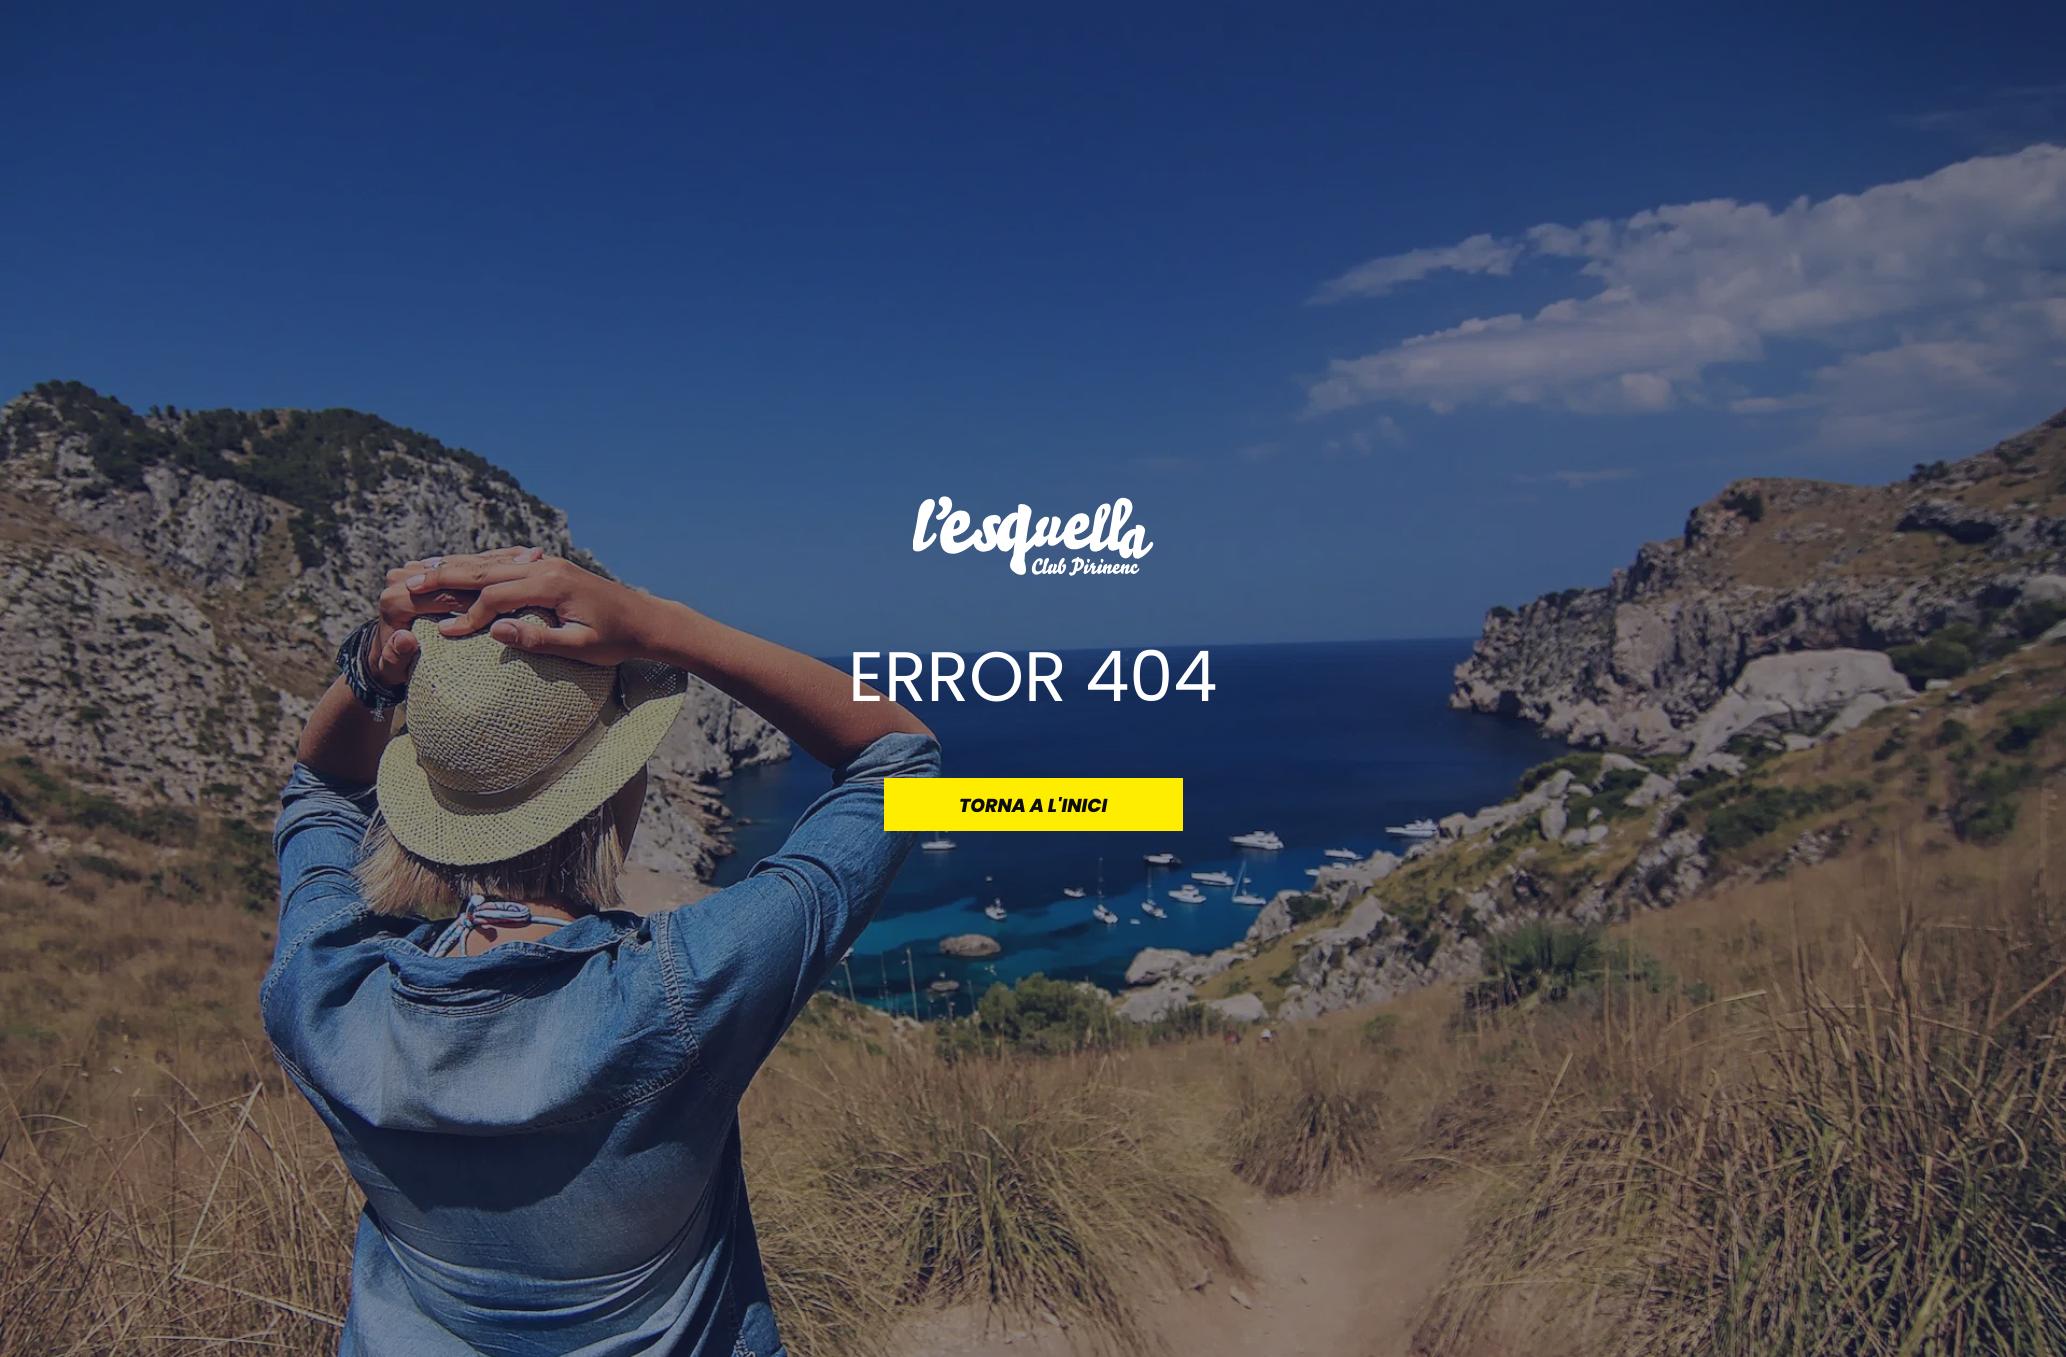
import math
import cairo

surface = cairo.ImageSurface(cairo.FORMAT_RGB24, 2066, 1357)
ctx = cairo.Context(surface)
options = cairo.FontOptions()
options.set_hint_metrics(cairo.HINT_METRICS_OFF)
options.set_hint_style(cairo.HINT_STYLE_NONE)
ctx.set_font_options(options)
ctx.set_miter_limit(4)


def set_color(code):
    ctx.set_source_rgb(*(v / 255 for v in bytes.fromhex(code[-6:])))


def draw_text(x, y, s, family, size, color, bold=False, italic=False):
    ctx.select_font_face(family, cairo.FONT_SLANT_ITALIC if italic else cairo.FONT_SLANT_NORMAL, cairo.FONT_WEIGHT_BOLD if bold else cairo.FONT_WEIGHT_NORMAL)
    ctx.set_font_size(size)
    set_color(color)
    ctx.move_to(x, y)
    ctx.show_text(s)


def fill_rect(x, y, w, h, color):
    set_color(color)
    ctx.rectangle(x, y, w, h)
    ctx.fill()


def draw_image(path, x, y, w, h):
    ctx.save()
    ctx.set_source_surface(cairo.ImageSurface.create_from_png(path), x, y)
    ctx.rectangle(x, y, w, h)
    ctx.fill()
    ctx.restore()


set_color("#ffffff")
ctx.paint()
draw_image("assets/img1.png", 0, 0, 2066, 1357)
draw_image("assets/img2.png", 913, 496, 241, 80)
draw_text(848, 701, "ERROR 404", "Poppins", 70, "#ffffff")
fill_rect(884, 778, 299, 53, "#ffed00")
draw_text(959, 812, "TORNA A L'INICI", "Poppins ExtraBold", 18.75, "#0d0c0c", italic=True)
surface.write_to_png("output.png")
